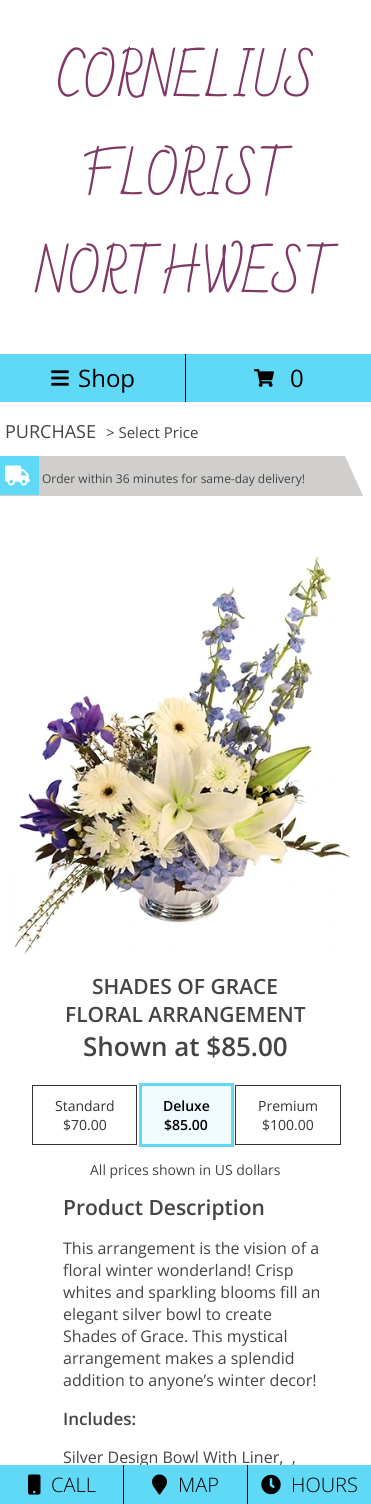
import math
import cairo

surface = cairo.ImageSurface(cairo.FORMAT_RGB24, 371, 1504)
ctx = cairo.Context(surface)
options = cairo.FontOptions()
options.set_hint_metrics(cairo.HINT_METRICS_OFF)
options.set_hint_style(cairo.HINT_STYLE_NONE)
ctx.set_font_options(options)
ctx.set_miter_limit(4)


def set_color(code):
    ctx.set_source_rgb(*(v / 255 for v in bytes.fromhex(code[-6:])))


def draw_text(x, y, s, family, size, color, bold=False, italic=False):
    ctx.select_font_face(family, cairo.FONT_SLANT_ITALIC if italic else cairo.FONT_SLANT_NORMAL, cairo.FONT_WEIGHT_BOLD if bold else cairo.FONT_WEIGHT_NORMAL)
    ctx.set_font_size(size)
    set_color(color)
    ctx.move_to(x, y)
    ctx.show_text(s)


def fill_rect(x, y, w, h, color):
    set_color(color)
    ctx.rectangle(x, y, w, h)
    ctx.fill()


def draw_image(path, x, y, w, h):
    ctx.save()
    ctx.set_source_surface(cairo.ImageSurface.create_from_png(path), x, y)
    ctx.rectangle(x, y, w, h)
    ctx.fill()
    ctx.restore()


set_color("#ffffff")
ctx.paint()
draw_text(56, 96, "CORNELIUS", "Bad Script", 50, "#803965")
draw_text(81, 194, "FLORIST", "Bad Script", 50, "#803965")
draw_text(35, 292, "NORTHWEST", "Bad Script", 50, "#803965")
fill_rect(185, 354, 1, 48, "#000000")
fill_rect(0, 354, 185, 48, "#60d9f6")
draw_image("assets/img1.png", 51, 370, 18, 16)
draw_text(78, 387, "Shop", "Open Sans", 24, "#000000")
fill_rect(186, 354, 185, 48, "#60d9f6")
draw_image("assets/img2.png", 254, 369, 20, 18)
draw_text(290, 387, "0", "Open Sans", 24, "#000000")
draw_text(5, 438, "PURCHASE", "Open Sans", 18, "#444444")
draw_text(106, 438, "> Select Price", "Open Sans", 15, "#444444")
set_color("#d0cfcd")
ctx.new_path()
ctx.move_to(363, 496)
ctx.line_to(0, 496)
ctx.line_to(0, 456)
ctx.line_to(345, 456)
ctx.close_path()
ctx.fill()
fill_rect(0, 456, 39, 39, "#60d9f6")
draw_image("assets/img3.png", 5, 465, 25, 21)
draw_text(42, 483, "Order within 36 minutes for same-day delivery!", "Open Sans", 12, "#444444")
draw_image("assets/img4.png", 10, 555, 341, 399)
draw_text(92, 994, "SHADES OF GRACE", "Open Sans SemiBold", 21, "#444444")
draw_text(65, 1022, "FLORAL ARRANGEMENT", "Open Sans SemiBold", 21, "#444444")
draw_text(83, 1056, "Shown at $85.00", "Open Sans SemiBold", 26, "#444444")
ctx.rectangle(32.5, 1085.5, 104, 59)
set_color("#333333")
ctx.set_line_width(1)
ctx.stroke()
draw_text(55, 1111, "Standard", "Open Sans", 14, "#333333")
draw_text(63, 1130, "$70.00", "Open Sans", 14, "#333333")
ctx.rectangle(140.5, 1084.5, 92, 61)
set_color("#60d9f6")
ctx.set_line_width(3)
ctx.stroke()
fill_rect(142, 1086, 89, 58, "#effbfe")
draw_text(163, 1111, "Deluxe", "Open Sans SemiBold", 14, "#000000")
draw_text(164, 1130, "$85.00", "Open Sans SemiBold", 14, "#000000")
ctx.rectangle(235.5, 1085.5, 105, 59)
set_color("#333333")
ctx.set_line_width(1)
ctx.stroke()
draw_text(258, 1111, "Premium", "Open Sans", 14, "#333333")
draw_text(262, 1130, "$100.00", "Open Sans", 14, "#333333")
draw_text(90, 1175, "All prices shown in US dollars", "Open Sans", 14, "#444444")
draw_text(63, 1215, "Product Description", "Open Sans SemiBold", 21, "#444444")
draw_text(63, 1254, "This arrangement is the vision of a", "Open Sans", 16, "#444444")
draw_text(63, 1276, "floral winter wonderland! Crisp", "Open Sans", 16, "#444444")
draw_text(63, 1298, "whites and sparkling blooms fill an", "Open Sans", 16, "#444444")
draw_text(63, 1320, "elegant silver bowl to create", "Open Sans", 16, "#444444")
draw_text(63, 1342, "Shades of Grace. This mystical", "Open Sans", 16, "#444444")
draw_text(63, 1364, "arrangement makes a splendid", "Open Sans", 16, "#444444")
draw_text(63, 1386, "addition to anyone’s winter decor!", "Open Sans", 16, "#444444")
draw_text(63, 1425, "Includes:", "Open Sans SemiBold", 17, "#444444")
draw_text(63, 1463, "Silver Design Bowl With Liner,  ,", "Open Sans", 16, "#444444")
fill_rect(0, 1465, 123, 39, "#60d9f6")
draw_image("assets/img5.png", 28, 1474, 13, 21)
draw_text(51, 1492, "CALL", "Open Sans Light", 20, "#000000")
fill_rect(124, 1465, 123, 39, "#60d9f6")
fill_rect(123, 1465, 1, 39, "#000000")
draw_image("assets/img6.png", 152, 1474, 15, 21)
draw_text(178, 1492, "MAP", "Open Sans Light", 20, "#000000")
fill_rect(248, 1465, 123, 39, "#60d9f6")
fill_rect(247, 1465, 1, 39, "#000000")
draw_image("assets/img7.png", 261, 1474, 20, 21)
draw_text(291, 1492, "HOURS", "Open Sans Light", 20, "#000000")
surface.write_to_png("output.png")
